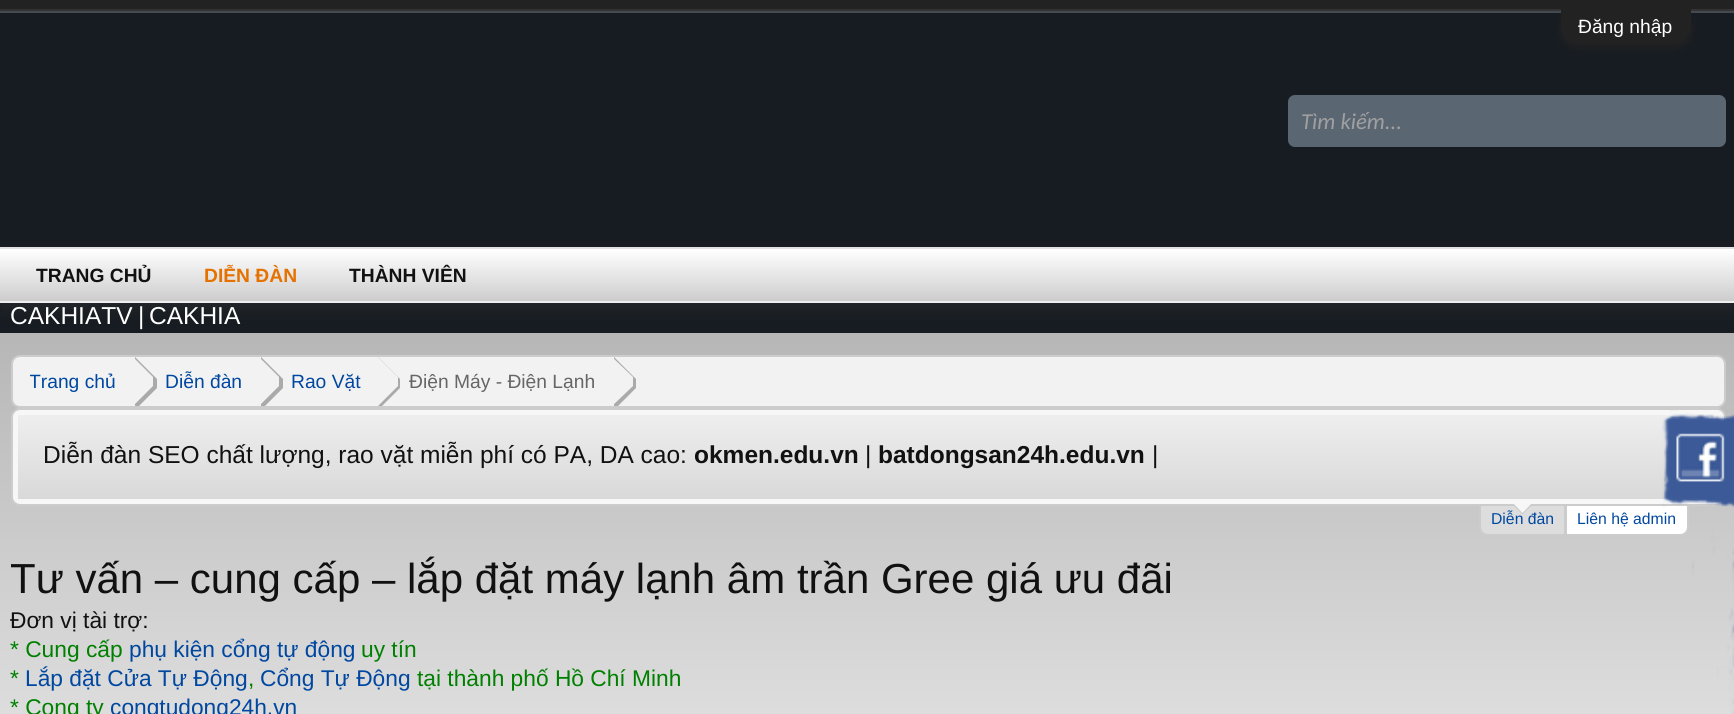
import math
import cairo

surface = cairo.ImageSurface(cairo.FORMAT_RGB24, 1734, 714)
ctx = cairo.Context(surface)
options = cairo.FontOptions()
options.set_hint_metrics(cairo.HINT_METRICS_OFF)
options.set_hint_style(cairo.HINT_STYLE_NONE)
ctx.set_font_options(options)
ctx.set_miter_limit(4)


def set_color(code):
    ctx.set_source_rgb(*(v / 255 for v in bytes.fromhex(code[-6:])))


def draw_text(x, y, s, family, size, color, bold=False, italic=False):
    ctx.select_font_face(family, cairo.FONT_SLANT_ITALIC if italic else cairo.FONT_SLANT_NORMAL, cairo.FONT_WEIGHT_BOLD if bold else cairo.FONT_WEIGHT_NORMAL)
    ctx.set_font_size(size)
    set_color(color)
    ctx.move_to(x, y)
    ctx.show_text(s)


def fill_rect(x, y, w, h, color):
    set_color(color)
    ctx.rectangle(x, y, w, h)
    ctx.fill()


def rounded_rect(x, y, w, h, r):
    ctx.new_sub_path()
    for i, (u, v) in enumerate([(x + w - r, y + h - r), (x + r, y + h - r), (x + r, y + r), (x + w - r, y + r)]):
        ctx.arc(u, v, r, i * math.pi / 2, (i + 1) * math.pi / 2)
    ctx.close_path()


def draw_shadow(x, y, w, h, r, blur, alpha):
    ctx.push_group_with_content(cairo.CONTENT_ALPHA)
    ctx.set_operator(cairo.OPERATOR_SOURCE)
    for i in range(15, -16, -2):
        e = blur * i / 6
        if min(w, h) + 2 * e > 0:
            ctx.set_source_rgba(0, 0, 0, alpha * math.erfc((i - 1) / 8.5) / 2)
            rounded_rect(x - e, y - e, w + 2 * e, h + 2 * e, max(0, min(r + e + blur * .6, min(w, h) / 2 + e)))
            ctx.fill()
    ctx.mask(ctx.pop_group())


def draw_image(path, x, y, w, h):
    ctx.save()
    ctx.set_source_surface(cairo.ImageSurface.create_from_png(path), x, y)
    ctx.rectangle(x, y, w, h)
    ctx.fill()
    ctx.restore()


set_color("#ffffff")
ctx.paint()
fill_rect(0, 0, 1734, 9, "#222222")
fill_rect(0, 9, 1734, 2, "#333333")
fill_rect(0, 13, 1734, 320, "#171c22")
fill_rect(0, 11, 1734, 2, "#444b53")
set_color("#222222")
draw_shadow(1561, 12, 130, 35, 17.5, 4.5, 1)
set_color("#222222")
ctx.new_path()
ctx.move_to(1561, 9)
ctx.line_to(1691, 9)
ctx.line_to(1691, 26.5)
ctx.curve_to(1691, 36, 1683, 44, 1673.5, 44)
ctx.line_to(1578.5, 44)
ctx.curve_to(1569, 44, 1561, 36, 1561, 26.5)
ctx.close_path()
ctx.fill()
draw_text(1578, 33, "Đăng nhập", "Liberation Sans", 19.25, "#ffffff")
set_color("#5b6673")
rounded_rect(1288, 95, 438, 52, 7)
ctx.fill()
draw_text(1301, 129, "Tìm kiếm...", "Carlito", 22.75, "#a0a0a0", italic=True)
set_color("#323232")
draw_shadow(0, 254, 1734, 56, 0, 7, 0.45)
gradient = cairo.LinearGradient(867, 248, 867, 301)
gradient.add_color_stop_rgba(0.02, 1, 1, 1, 1)
gradient.add_color_stop_rgba(1, 0.804, 0.804, 0.804, 1)
ctx.set_source(gradient)
ctx.rectangle(0, 249, 1734, 52)
ctx.fill()
fill_rect(0, 247, 1734, 2, "#e1e1e1")
fill_rect(0, 301, 1734, 2, "#eeeeee")
draw_text(36, 282, "TRANG CHỦ", "Liberation Sans", 19.25, "#111111", bold=True)
draw_text(204, 282, "DIỄN ĐÀN", "Liberation Sans", 19.25, "#e57200", bold=True)
draw_text(349, 282, "THÀNH VIÊN", "Liberation Sans", 19.25, "#111111", bold=True)
draw_text(10, 324, "CAKHIATV", "Liberation Sans", 24.5, "#ffffff")
draw_text(138, 324, "|", "Liberation Sans", 24.5, "#ffffff")
draw_text(149, 324, "CAKHIA", "Liberation Sans", 24.5, "#ffffff")
gradient = cairo.LinearGradient(1575, 299, 1575, 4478)
gradient.add_color_stop_rgba(0, 0.702, 0.702, 0.702, 1)
gradient.add_color_stop_rgba(0.18, 1, 1, 1, 1)
gradient.add_color_stop_rgba(1, 1, 1, 1, 1)
ctx.set_source(gradient)
ctx.rectangle(0, 333, 1734, 381)
ctx.fill()
set_color("#f2f2f2")
rounded_rect(12, 356, 1713, 51, 8)
ctx.fill_preserve()
set_color("#cccccc")
ctx.stroke()
ctx.save()
ctx.rectangle(30, 357, 86, 49)
ctx.clip()
draw_text(29, 388, "Trang chủ", "Liberation Sans", 19.25, "#0047a0")
ctx.restore()
set_color("#aaaaaa")
ctx.new_path()
ctx.move_to(139, 406)
ctx.line_to(135, 406)
ctx.line_to(135, 357)
ctx.line_to(157, 379)
ctx.line_to(157, 388)
ctx.close_path()
ctx.fill()
set_color("#f2f2f2")
ctx.new_path()
ctx.move_to(133, 406)
ctx.line_to(133, 357)
ctx.line_to(153, 377)
ctx.line_to(153, 386)
ctx.close_path()
ctx.fill()
draw_text(165, 388, "Diễn đàn", "Liberation Sans", 19.25, "#0047a0")
set_color("#aaaaaa")
ctx.new_path()
ctx.move_to(265, 406)
ctx.line_to(261, 406)
ctx.line_to(261, 357)
ctx.line_to(283, 379)
ctx.line_to(283, 388)
ctx.close_path()
ctx.fill()
set_color("#f2f2f2")
ctx.new_path()
ctx.move_to(259, 406)
ctx.line_to(259, 357)
ctx.line_to(279, 377)
ctx.line_to(279, 386)
ctx.close_path()
ctx.fill()
draw_text(291, 388, "Rao Vặt", "Liberation Sans", 19.25, "#0047a0")
set_color("#aaaaaa")
ctx.new_path()
ctx.move_to(382, 406)
ctx.line_to(378, 406)
ctx.line_to(378, 357)
ctx.line_to(400, 379)
ctx.line_to(400, 388)
ctx.close_path()
ctx.fill()
set_color("#f2f2f2")
ctx.new_path()
ctx.move_to(378, 406)
ctx.line_to(378, 357)
ctx.line_to(398, 377)
ctx.line_to(398, 386)
ctx.close_path()
ctx.fill()
draw_text(409, 388, "Điện Máy - Điện Lạnh", "Liberation Sans", 19.25, "#666666")
set_color("#aaaaaa")
ctx.new_path()
ctx.move_to(618, 406)
ctx.line_to(614, 406)
ctx.line_to(614, 357)
ctx.line_to(636, 379)
ctx.line_to(636, 388)
ctx.close_path()
ctx.fill()
set_color("#f2f2f2")
ctx.new_path()
ctx.move_to(612, 406)
ctx.line_to(612, 357)
ctx.line_to(633, 377)
ctx.line_to(633, 386)
ctx.close_path()
ctx.fill()
set_color("#f7f7f7")
rounded_rect(12, 409, 1713, 96, 8)
ctx.fill_preserve()
set_color("#cccccc")
ctx.stroke()
gradient = cairo.LinearGradient(894, 415, 894, 551)
gradient.add_color_stop_rgba(0, 0.933, 0.933, 0.933, 1)
gradient.add_color_stop_rgba(1, 0.8, 0.8, 0.8, 1)
ctx.set_source(gradient)
ctx.rectangle(18, 415, 1701, 84)
ctx.fill()
draw_text(43, 463, "Diễn đàn SEO chất lượng, rao vặt miễn phí có PA, DA cao:", "Liberation Sans", 24.5, "#111111")
draw_text(694, 463, "okmen.edu.vn", "Liberation Sans", 24.5, "#111111", bold=True)
draw_text(865, 463, "|", "Liberation Sans", 24.5, "#111111")
draw_text(878, 463, "batdongsan24h.edu.vn", "Liberation Sans", 24.5, "#111111", bold=True)
draw_text(1152, 463, "|", "Liberation Sans", 24.5, "#111111")
set_color("#dddddd")
ctx.new_path()
ctx.move_to(1480, 505)
ctx.line_to(1565, 505)
ctx.line_to(1565, 535)
ctx.line_to(1488, 535)
ctx.curve_to(1483.5, 535, 1480, 531.5, 1480, 527)
ctx.close_path()
ctx.fill_preserve()
set_color("#cccccc")
ctx.stroke()
draw_text(1491, 524, "Diễn đàn", "Liberation Sans", 15.75, "#0047a0")
set_color("#cccccc")
ctx.new_path()
ctx.move_to(1514, 506)
ctx.line_to(1531, 506)
ctx.line_to(1522.5, 514.5)
ctx.close_path()
ctx.fill()
set_color("#f7f7f7")
ctx.new_path()
ctx.move_to(1514, 504)
ctx.line_to(1531, 504)
ctx.line_to(1522.5, 513)
ctx.close_path()
ctx.fill()
set_color("#ffffff")
ctx.new_path()
ctx.move_to(1566, 505)
ctx.line_to(1688, 505)
ctx.line_to(1688, 527)
ctx.curve_to(1688, 531.5, 1684.5, 535, 1680, 535)
ctx.line_to(1566, 535)
ctx.close_path()
ctx.fill_preserve()
set_color("#cccccc")
ctx.stroke()
draw_text(1577, 524, "Liên hệ admin", "Liberation Sans", 15.75, "#0047a0")
ctx.save()
ctx.rectangle(11, 553, 1715, 54)
ctx.clip()
draw_text(10, 593, "Tư vấn – cung cấp – lắp đặt máy lạnh âm trần Gree giá ưu đãi", "Liberation Sans", 42, "#111111")
ctx.restore()
draw_text(10, 628, "Đơn vị tài trợ:", "Liberation Sans", 22.75, "#111111")
draw_text(10, 657, "* Cung cấp", "Liberation Sans", 22.75, "#008000")
draw_text(129, 657, "phụ kiện cổng tự động", "Liberation Sans", 22.75, "#0047a0")
draw_text(361, 657, "uy tín", "Liberation Sans", 22.75, "#008000")
draw_text(10, 686, "*", "Liberation Sans", 22.75, "#008000")
draw_text(25, 686, "Lắp đặt Cửa Tự Động", "Liberation Sans", 22.75, "#0047a0")
draw_text(260, 686, "Cổng Tự Động", "Liberation Sans", 22.75, "#0047a0")
draw_text(417, 686, "tại thành phố Hồ Chí Minh", "Liberation Sans", 22.75, "#008000")
draw_text(248, 686, ",", "Liberation Sans", 22.75, "#008000")
draw_text(10, 715, "* Cong ty", "Liberation Sans", 22.75, "#008000")
draw_text(110, 715, "congtudong24h.vn", "Liberation Sans", 22.75, "#0047a0")
draw_image("assets/img1.png", 1662, 410, 72, 304)
surface.write_to_png("output.png")
